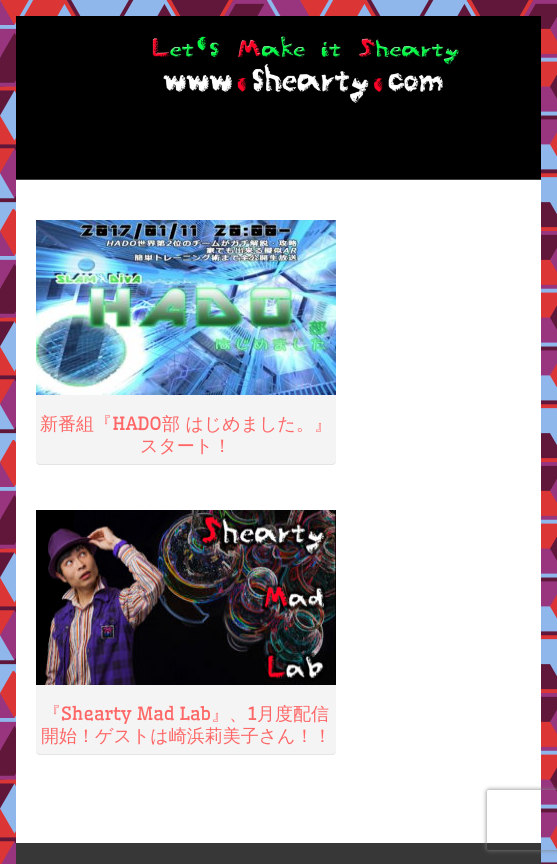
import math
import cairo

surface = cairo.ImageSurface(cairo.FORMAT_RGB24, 557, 864)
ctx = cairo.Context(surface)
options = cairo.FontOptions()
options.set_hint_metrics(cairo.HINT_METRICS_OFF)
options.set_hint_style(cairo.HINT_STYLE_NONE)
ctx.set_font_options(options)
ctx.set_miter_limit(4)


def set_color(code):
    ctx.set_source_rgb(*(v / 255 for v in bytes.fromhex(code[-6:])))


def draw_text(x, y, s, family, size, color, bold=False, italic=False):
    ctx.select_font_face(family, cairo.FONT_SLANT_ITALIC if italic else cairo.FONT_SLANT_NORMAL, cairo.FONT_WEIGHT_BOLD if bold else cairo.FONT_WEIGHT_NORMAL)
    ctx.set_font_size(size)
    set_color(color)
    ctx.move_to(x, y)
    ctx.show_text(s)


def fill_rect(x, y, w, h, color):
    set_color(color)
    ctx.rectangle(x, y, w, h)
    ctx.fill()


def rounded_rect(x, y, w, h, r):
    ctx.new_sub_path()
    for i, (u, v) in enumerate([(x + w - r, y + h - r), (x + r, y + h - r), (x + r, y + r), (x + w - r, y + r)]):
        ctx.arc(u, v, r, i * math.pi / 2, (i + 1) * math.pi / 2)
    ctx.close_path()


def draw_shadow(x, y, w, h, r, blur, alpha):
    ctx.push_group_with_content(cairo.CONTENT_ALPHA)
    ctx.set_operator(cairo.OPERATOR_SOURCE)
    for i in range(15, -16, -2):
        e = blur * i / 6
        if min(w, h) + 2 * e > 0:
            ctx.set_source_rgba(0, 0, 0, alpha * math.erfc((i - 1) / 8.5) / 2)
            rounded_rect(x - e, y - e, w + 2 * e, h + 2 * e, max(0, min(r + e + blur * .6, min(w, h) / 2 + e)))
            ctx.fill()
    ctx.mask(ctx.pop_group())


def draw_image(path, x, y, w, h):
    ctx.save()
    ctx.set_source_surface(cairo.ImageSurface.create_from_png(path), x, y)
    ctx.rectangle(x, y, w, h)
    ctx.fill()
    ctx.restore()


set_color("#ffffff")
ctx.paint()
draw_image("assets/img1.png", 0, 0, 557, 864)
fill_rect(16, 16, 525, 163, "#000000")
draw_image("assets/img2.png", 152, 36, 308, 67)
fill_rect(16, 179, 525, 1, "#3f3f3f")
fill_rect(16, 180, 525, 663, "#ffffff")
draw_image("assets/img3.png", 36, 220, 300, 175)
set_color("#f4f4f4")
ctx.new_path()
ctx.move_to(36, 395)
ctx.line_to(336, 395)
ctx.line_to(336, 461)
ctx.curve_to(336, 463, 334, 465, 332, 465)
ctx.line_to(40, 465)
ctx.curve_to(38, 465, 36, 463, 36, 461)
ctx.close_path()
ctx.fill()
ctx.set_source_rgba(0, 0, 0, 0.07)
ctx.new_path()
ctx.move_to(36, 460)
ctx.curve_to(36, 463, 37, 465, 40, 465)
ctx.line_to(332, 465)
ctx.curve_to(335, 465, 336, 463, 336, 460)
ctx.curve_to(336, 462, 334, 464, 332, 464)
ctx.line_to(40, 464)
ctx.curve_to(38, 464, 36, 462, 36, 460)
ctx.close_path()
ctx.fill()
draw_text(40, 430, "新番組『", "WenQuanYi Zen Hei Medium", 18, "#ff6666")
draw_text(112, 430, "HADO", "Wellfleet", 18, "#ff6666")
draw_text(162, 430, "部 はじめました。』", "WenQuanYi Zen Hei Medium", 18, "#ff6666")
draw_text(140, 452, "スタート！", "WenQuanYi Zen Hei Medium", 18, "#ff6666")
fill_rect(36, 510, 8, 175, "#000000")
draw_image("assets/img4.png", 44, 510, 292, 175)
set_color("#f4f4f4")
ctx.new_path()
ctx.move_to(36, 685)
ctx.line_to(336, 685)
ctx.line_to(336, 751)
ctx.curve_to(336, 753, 334, 755, 332, 755)
ctx.line_to(40, 755)
ctx.curve_to(38, 755, 36, 753, 36, 751)
ctx.close_path()
ctx.fill()
ctx.set_source_rgba(0, 0, 0, 0.07)
ctx.new_path()
ctx.move_to(36, 750)
ctx.curve_to(36, 753, 37, 755, 40, 755)
ctx.line_to(332, 755)
ctx.curve_to(335, 755, 336, 753, 336, 750)
ctx.curve_to(336, 752, 334, 754, 332, 754)
ctx.line_to(40, 754)
ctx.curve_to(38, 754, 36, 752, 36, 750)
ctx.close_path()
ctx.fill()
draw_text(43, 720, "『", "WenQuanYi Zen Hei Medium", 18, "#ff6666")
draw_text(61, 720, "Shearty Mad Lab", "Wellfleet", 18, "#ff6666")
draw_text(211, 720, "』、", "WenQuanYi Zen Hei Medium", 18, "#ff6666")
draw_text(247, 720, "1", "Wellfleet", 18, "#ff6666")
draw_text(257, 720, "月度配信", "WenQuanYi Zen Hei Medium", 18, "#ff6666")
draw_text(41, 742, "開始！ゲストは崎浜莉美子さん！！", "WenQuanYi Zen Hei Medium", 18, "#ff6666")
fill_rect(16, 843, 525, 21, "#373737")
ctx.save()
ctx.set_fill_rule(cairo.FILL_RULE_EVEN_ODD)
ctx.new_path()
ctx.move_to(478, 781)
ctx.line_to(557, 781)
ctx.line_to(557, 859)
ctx.line_to(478, 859)
ctx.close_path()
ctx.move_to(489, 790)
ctx.line_to(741, 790)
ctx.curve_to(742, 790, 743, 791, 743, 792)
ctx.line_to(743, 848)
ctx.curve_to(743, 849, 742, 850, 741, 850)
ctx.line_to(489, 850)
ctx.curve_to(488, 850, 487, 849, 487, 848)
ctx.line_to(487, 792)
ctx.curve_to(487, 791, 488, 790, 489, 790)
ctx.close_path()
ctx.clip()
set_color("#808080")
draw_shadow(487, 790, 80, 60, 2, 2.5, 1)
ctx.restore()
surface.write_to_png("output.png")
